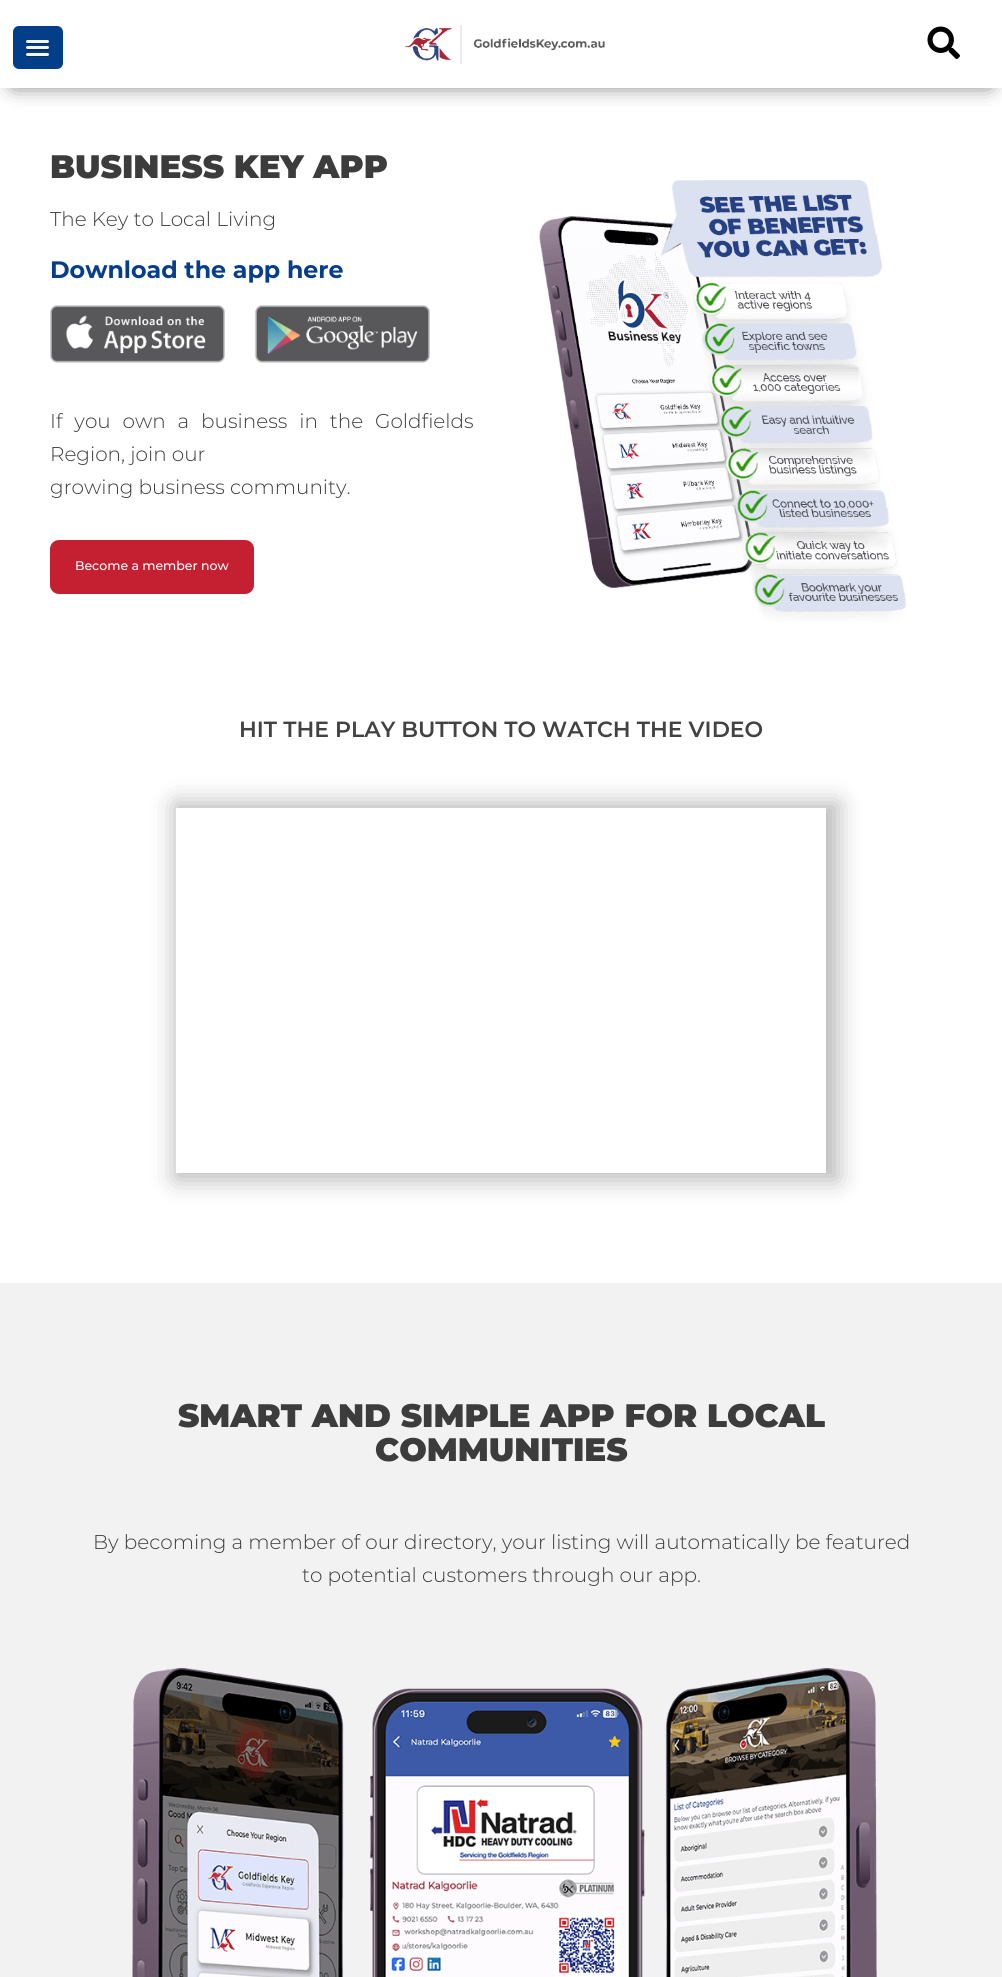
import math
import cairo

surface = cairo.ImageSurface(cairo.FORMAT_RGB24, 1002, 1977)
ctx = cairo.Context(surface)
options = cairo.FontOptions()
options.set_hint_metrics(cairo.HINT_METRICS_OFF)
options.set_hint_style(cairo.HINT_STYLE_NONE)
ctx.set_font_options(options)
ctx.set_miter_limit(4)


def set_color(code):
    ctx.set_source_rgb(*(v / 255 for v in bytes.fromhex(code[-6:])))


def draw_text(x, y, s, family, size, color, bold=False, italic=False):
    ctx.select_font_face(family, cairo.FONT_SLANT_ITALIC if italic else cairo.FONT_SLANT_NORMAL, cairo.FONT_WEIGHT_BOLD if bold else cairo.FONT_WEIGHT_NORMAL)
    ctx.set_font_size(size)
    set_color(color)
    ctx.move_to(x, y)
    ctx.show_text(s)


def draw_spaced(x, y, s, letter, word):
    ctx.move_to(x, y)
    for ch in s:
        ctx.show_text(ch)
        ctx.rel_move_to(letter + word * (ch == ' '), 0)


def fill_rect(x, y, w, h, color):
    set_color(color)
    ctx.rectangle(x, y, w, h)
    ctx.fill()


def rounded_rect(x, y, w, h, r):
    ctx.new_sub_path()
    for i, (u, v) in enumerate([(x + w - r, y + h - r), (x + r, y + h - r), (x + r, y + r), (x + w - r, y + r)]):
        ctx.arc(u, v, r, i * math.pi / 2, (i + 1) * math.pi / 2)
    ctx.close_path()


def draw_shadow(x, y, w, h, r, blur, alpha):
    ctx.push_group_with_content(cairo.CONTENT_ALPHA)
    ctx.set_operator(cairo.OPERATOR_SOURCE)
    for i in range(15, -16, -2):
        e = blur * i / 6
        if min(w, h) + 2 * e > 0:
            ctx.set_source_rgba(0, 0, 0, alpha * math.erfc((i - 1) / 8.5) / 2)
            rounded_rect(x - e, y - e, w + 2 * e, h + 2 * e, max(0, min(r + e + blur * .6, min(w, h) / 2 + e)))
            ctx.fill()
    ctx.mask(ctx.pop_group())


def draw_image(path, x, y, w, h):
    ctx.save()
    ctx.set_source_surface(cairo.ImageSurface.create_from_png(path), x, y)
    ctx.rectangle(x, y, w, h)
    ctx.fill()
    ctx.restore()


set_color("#ffffff")
ctx.paint()
set_color("#000000")
draw_shadow(14, 23, 975, 60, 0, 11, 0.75)
fill_rect(0, 0, 1002, 88, "#ffffff")
set_color("#023f88")
rounded_rect(13, 26, 50, 43, 6)
ctx.fill()
set_color("#022f66")
ctx.new_path()
ctx.move_to(26.5, 41.5)
ctx.curve_to(24, 44.5, 30.5, 44, 31, 44)
ctx.line_to(44, 44)
ctx.curve_to(44.5, 44, 51, 44.5, 48.5, 41.5)
ctx.curve_to(48.5, 42, 48, 42.5, 47.5, 42.5)
ctx.line_to(27.5, 42.5)
ctx.curve_to(27, 42.5, 26.5, 42, 26.5, 41.5)
ctx.close_path()
ctx.fill()
set_color("#f5f5f5")
rounded_rect(26, 40, 23, 3, 1.5)
ctx.fill()
set_color("#022f66")
ctx.new_path()
ctx.move_to(26.5, 48.5)
ctx.curve_to(25.5, 49, 26, 50.5, 27, 51)
ctx.line_to(44, 51)
ctx.curve_to(45, 51, 48.5, 52, 49, 50)
ctx.curve_to(49, 49.5, 49, 48.5, 48.5, 48.5)
ctx.curve_to(47.5, 49, 27.5, 49, 26.5, 48.5)
ctx.close_path()
ctx.fill()
set_color("#f5f5f5")
rounded_rect(26, 46, 23, 3, 1.5)
ctx.fill()
set_color("#022f66")
ctx.new_path()
ctx.move_to(26.5, 54.5)
ctx.line_to(26, 56)
ctx.curve_to(26.5, 58, 30, 57, 31, 57)
ctx.line_to(44, 57)
ctx.curve_to(45, 57, 48.5, 58, 49, 56)
ctx.line_to(48.5, 54.5)
ctx.line_to(47.5, 55)
ctx.line_to(27.5, 55)
ctx.close_path()
ctx.fill()
set_color("#f5f5f5")
rounded_rect(26, 53, 23, 3, 1.5)
ctx.fill()
draw_image("assets/img1.png", 405, 25, 200, 39)
draw_image("assets/img2.png", 927, 26, 33, 33)
draw_text(50, 178, "BUSINESS KEY APP", "Montserrat Black", 32.5, "#3c3c3c")
draw_text(50, 226, "The Key to Local Living", "Montserrat Light", 20, "#3c3c3c")
draw_text(50, 278, "Download the app here", "Montserrat", 23.75, "#073d8b", bold=True)
draw_image("assets/img3.png", 50, 305, 175, 58)
draw_image("assets/img4.png", 255, 305, 175, 58)
ctx.select_font_face("Montserrat Light")
ctx.set_font_size(20)
set_color("#3c3c3c")
draw_spaced(50, 428, "If you own a business in the Goldfields", 0, 6.75)
draw_text(50, 461, "Region, join our", "Montserrat Light", 20, "#3c3c3c")
draw_text(50, 494, "growing business community.", "Montserrat Light", 20, "#3c3c3c")
set_color("#c52032")
rounded_rect(50, 540, 204, 54, 9)
ctx.fill()
draw_text(75, 570, "Become a member now", "Montserrat Medium", 12.5, "#ffffff")
draw_image("assets/img5.png", 539, 180, 367, 442)
draw_text(239, 737, "HIT THE PLAY BUTTON TO WATCH THE VIDEO", "Montserrat SemiBold", 22, "#424242")
ctx.save()
ctx.set_fill_rule(cairo.FILL_RULE_EVEN_ODD)
ctx.new_path()
ctx.move_to(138, 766)
ctx.line_to(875, 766)
ctx.line_to(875, 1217)
ctx.line_to(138, 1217)
ctx.close_path()
ctx.move_to(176, 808)
ctx.line_to(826, 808)
ctx.line_to(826, 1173)
ctx.line_to(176, 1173)
ctx.close_path()
ctx.clip()
set_color("#888888")
draw_shadow(175, 803, 663, 377, 0, 12, 0.6)
ctx.restore()
fill_rect(0, 1283, 1002, 694, "#f2f2f2")
draw_text(178, 1427, "SMART AND SIMPLE APP FOR LOCAL", "Montserrat Black", 32.5, "#3c3c3c")
draw_text(375, 1461, "COMMUNITIES", "Montserrat Black", 32.5, "#3c3c3c")
draw_text(93, 1549, "By becoming a member of our directory, your listing will automatically be featured", "Montserrat Light", 20, "#3c3c3c")
draw_text(302, 1582, "to potential customers through our app.", "Montserrat Light", 20, "#3c3c3c")
draw_image("assets/img6.png", 132, 1668, 745, 309)
surface.write_to_png("output.png")
